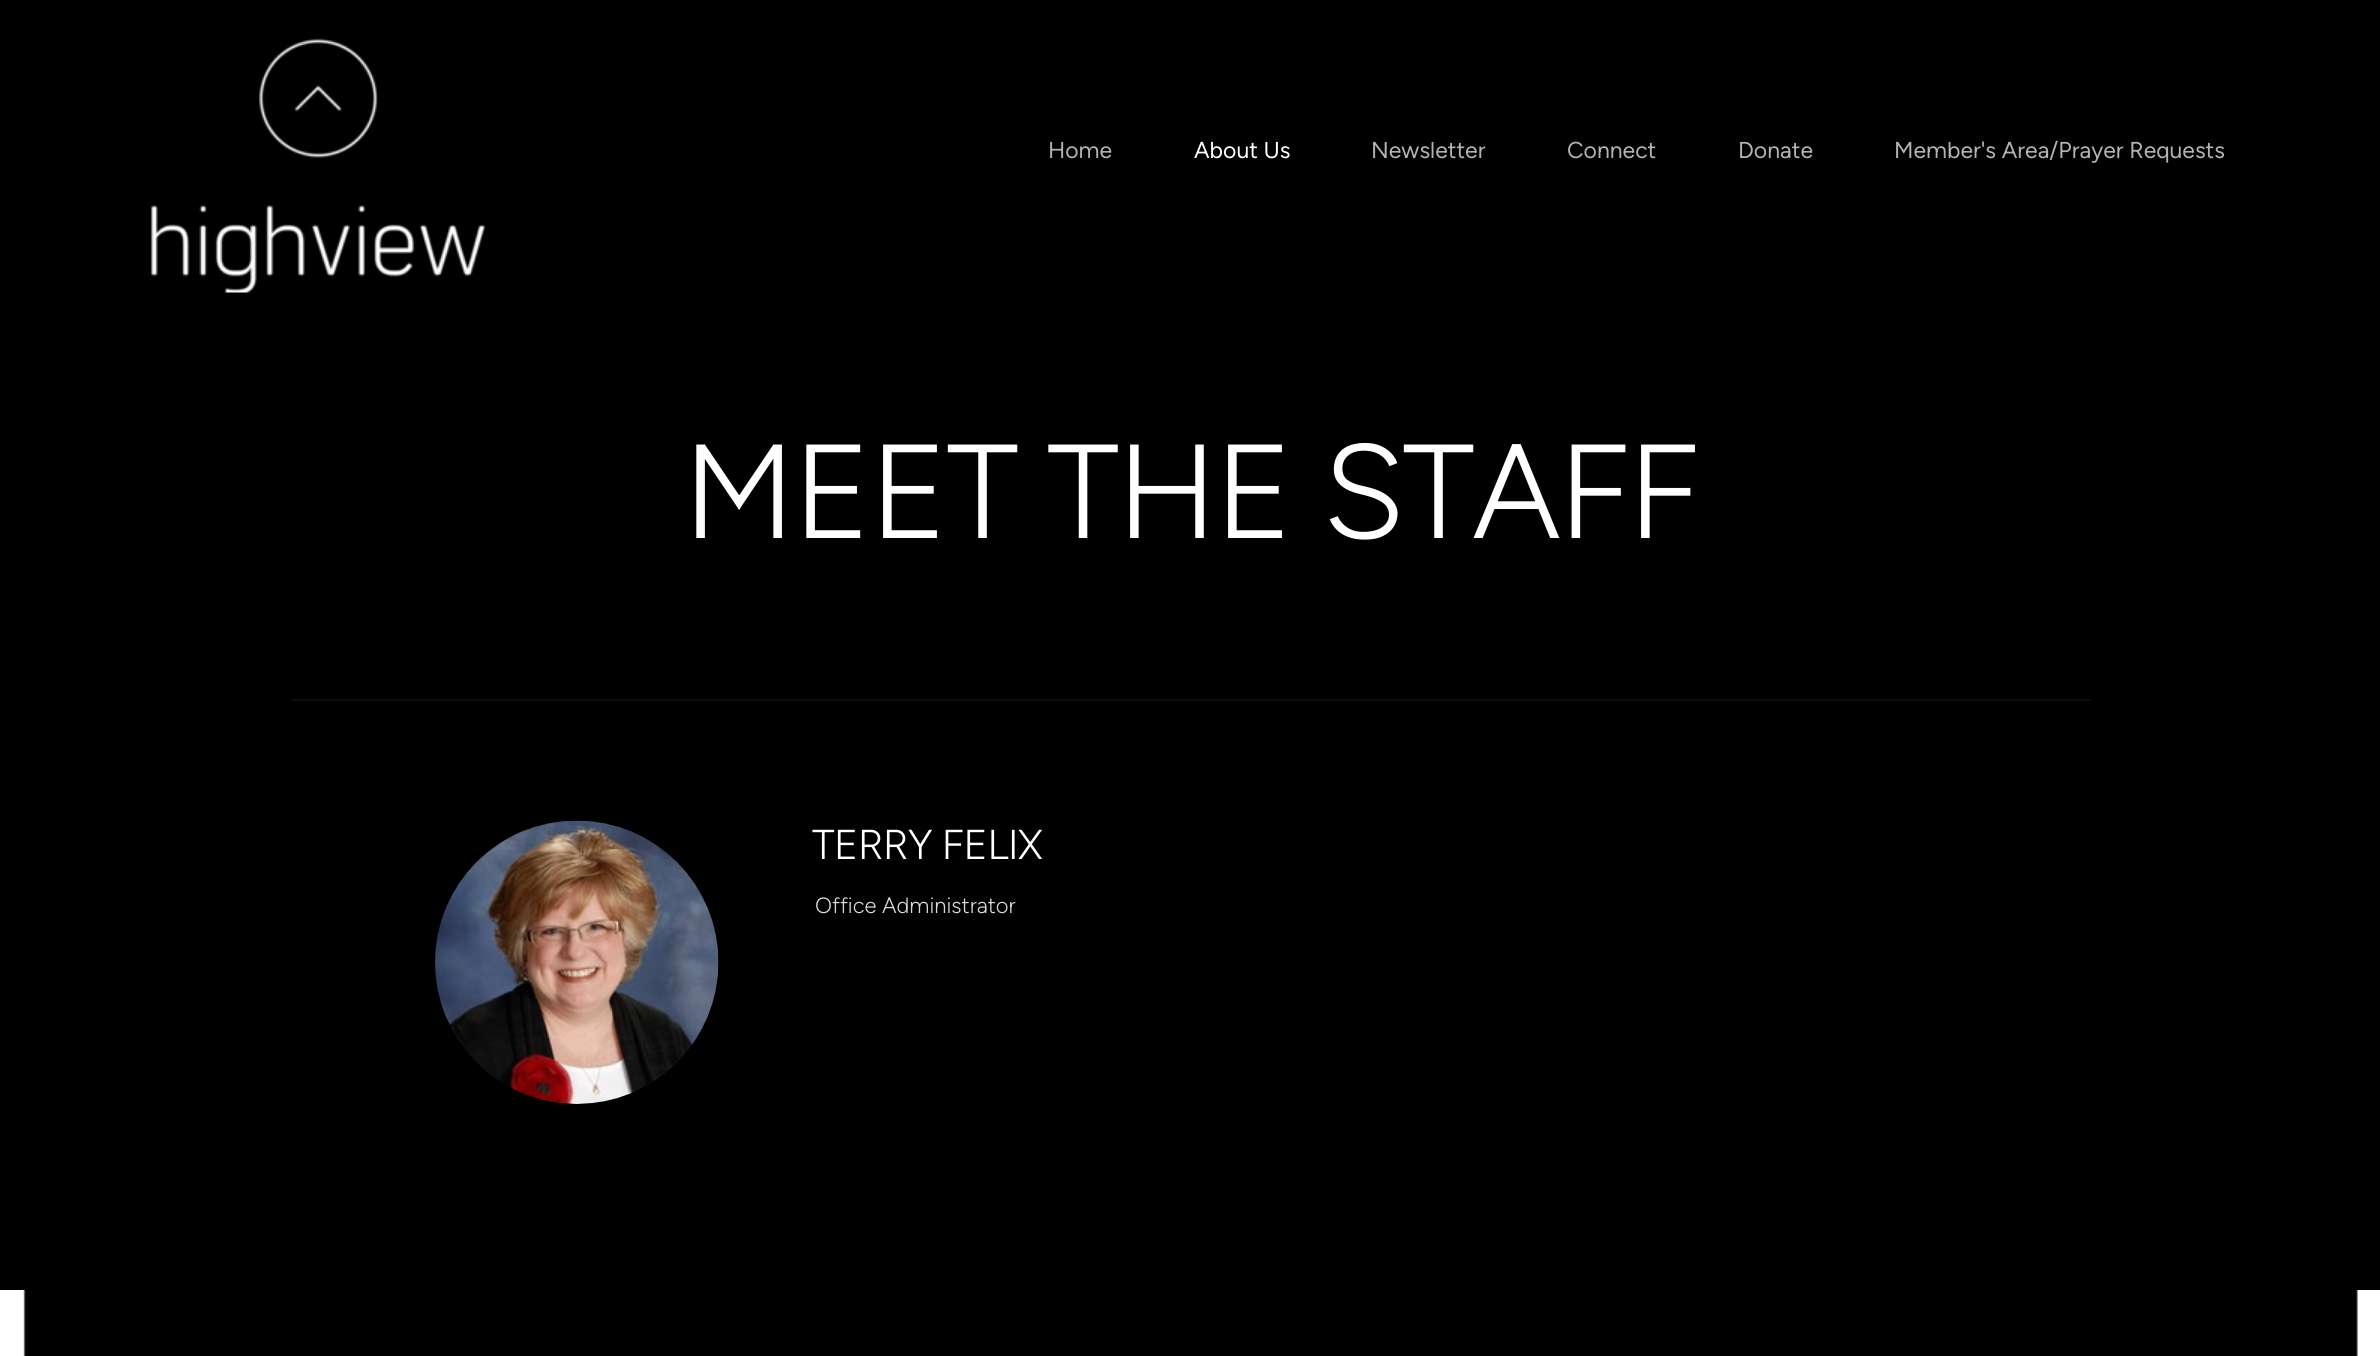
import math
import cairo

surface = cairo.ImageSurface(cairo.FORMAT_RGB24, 2380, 1356)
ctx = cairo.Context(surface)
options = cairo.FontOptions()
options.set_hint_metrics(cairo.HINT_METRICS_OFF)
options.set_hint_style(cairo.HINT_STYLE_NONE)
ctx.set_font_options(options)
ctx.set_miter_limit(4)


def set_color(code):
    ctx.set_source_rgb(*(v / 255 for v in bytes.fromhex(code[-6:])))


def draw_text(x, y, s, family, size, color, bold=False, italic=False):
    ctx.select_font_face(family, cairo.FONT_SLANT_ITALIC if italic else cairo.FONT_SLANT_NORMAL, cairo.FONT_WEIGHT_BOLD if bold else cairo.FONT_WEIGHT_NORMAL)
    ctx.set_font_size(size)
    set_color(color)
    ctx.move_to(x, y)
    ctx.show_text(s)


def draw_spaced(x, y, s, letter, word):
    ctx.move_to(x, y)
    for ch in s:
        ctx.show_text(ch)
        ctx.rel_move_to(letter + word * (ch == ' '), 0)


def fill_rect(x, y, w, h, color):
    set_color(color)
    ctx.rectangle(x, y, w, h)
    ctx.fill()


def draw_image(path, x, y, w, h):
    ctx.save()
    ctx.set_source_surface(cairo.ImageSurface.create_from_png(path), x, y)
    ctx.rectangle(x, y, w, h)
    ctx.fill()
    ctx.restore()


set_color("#000000")
ctx.paint()
draw_image("assets/img1.png", 150, 38, 336, 255)
draw_text(1048, 158, "Home", "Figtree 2 Light", 23, "#b3b3b3")
draw_text(1194, 158, "About Us", "Figtree 2 Light", 23, "#ffffff")
draw_text(1371, 158, "Newsletter", "Figtree 2 Light", 23, "#b3b3b3")
draw_text(1567, 158, "Connect", "Figtree 2 Light", 23, "#b3b3b3")
draw_text(1738, 158, "Donate", "Figtree 2 Light", 23, "#b3b3b3")
draw_text(1894, 158, "Member's Area/Prayer Requests", "Figtree 2 Light", 23, "#b3b3b3")
ctx.select_font_face("Figtree Light")
ctx.set_font_size(133.5)
set_color("#ffffff")
draw_spaced(683, 538, "MEET THE STAFF", -2.4, 0)
fill_rect(291, 699, 1800, 2, "#0b0b0b")
draw_image("assets/img2.png", 435, 820, 284, 284)
ctx.set_font_size(41.75)
set_color("#ffffff")
draw_spaced(812, 859, "TERRY FELIX", -0.75, 0)
draw_text(815, 913, "Office Administrator", "Figtree Light", 22, "#d9d9d9")
draw_image("assets/img3.png", 0, 1290, 2380, 66)
surface.write_to_png("output.png")
